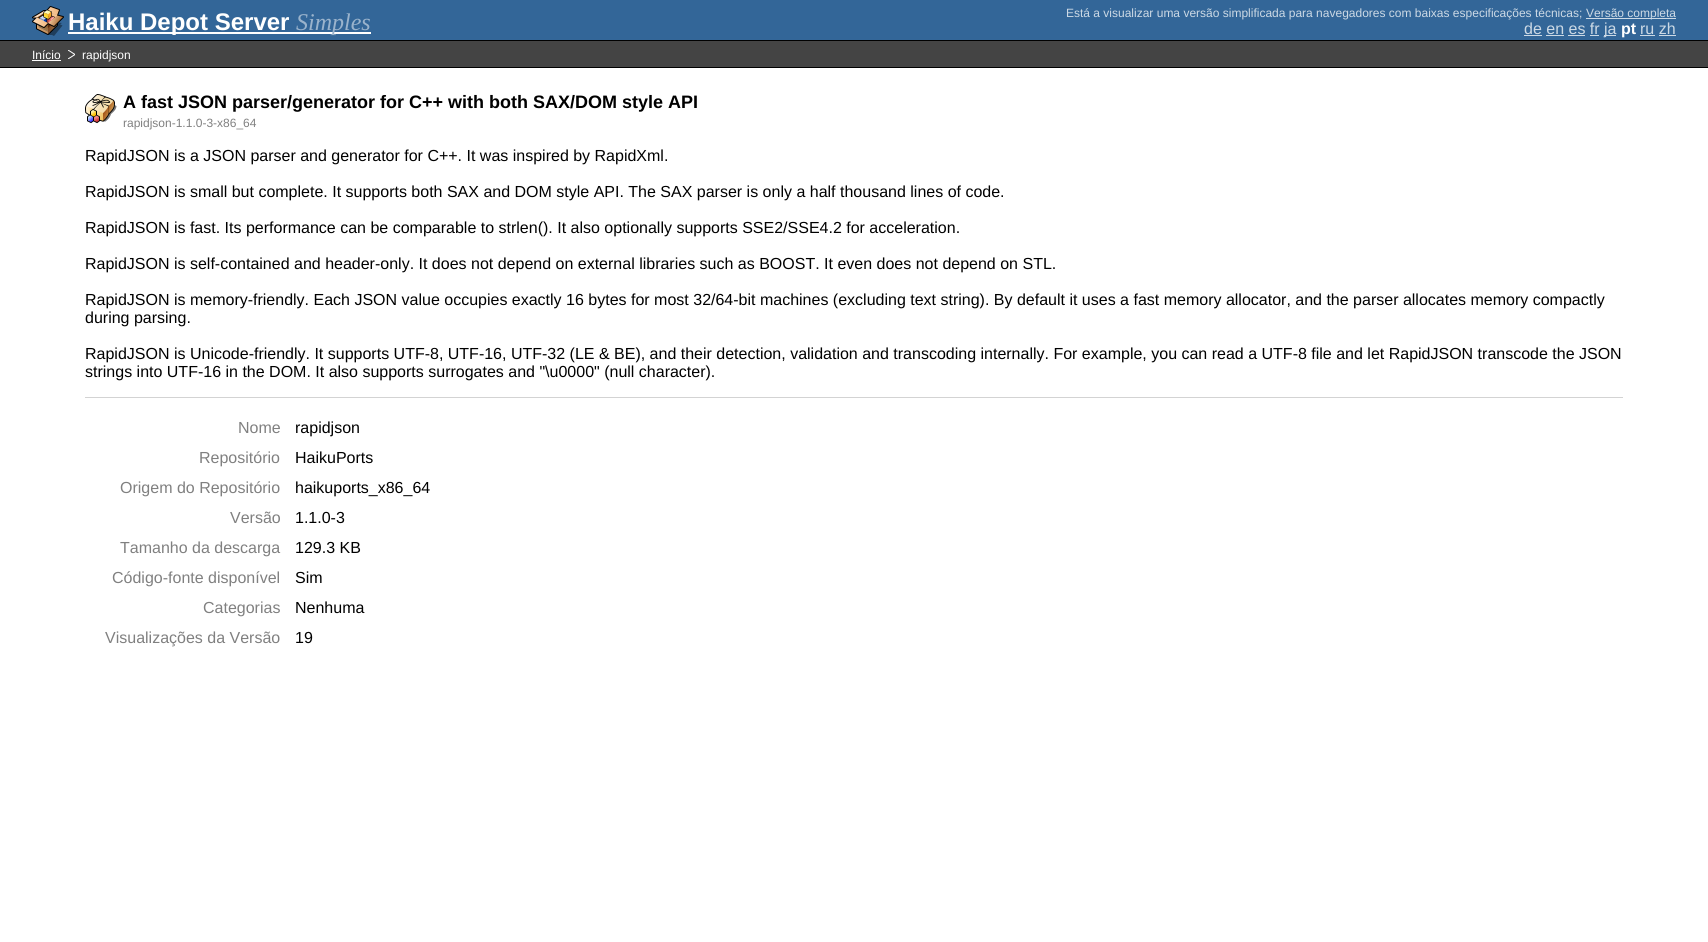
import math
import cairo

surface = cairo.ImageSurface(cairo.FORMAT_RGB24, 1708, 942)
ctx = cairo.Context(surface)
options = cairo.FontOptions()
options.set_hint_metrics(cairo.HINT_METRICS_OFF)
options.set_hint_style(cairo.HINT_STYLE_NONE)
ctx.set_font_options(options)
ctx.set_miter_limit(4)


def set_color(code):
    ctx.set_source_rgb(*(v / 255 for v in bytes.fromhex(code[-6:])))


def draw_text(x, y, s, family, size, color, bold=False, italic=False):
    ctx.select_font_face(family, cairo.FONT_SLANT_ITALIC if italic else cairo.FONT_SLANT_NORMAL, cairo.FONT_WEIGHT_BOLD if bold else cairo.FONT_WEIGHT_NORMAL)
    ctx.set_font_size(size)
    set_color(color)
    ctx.move_to(x, y)
    ctx.show_text(s)


def fill_rect(x, y, w, h, color):
    set_color(color)
    ctx.rectangle(x, y, w, h)
    ctx.fill()


def draw_image(path, x, y, w, h):
    ctx.save()
    ctx.set_source_surface(cairo.ImageSurface.create_from_png(path), x, y)
    ctx.rectangle(x, y, w, h)
    ctx.fill()
    ctx.restore()


set_color("#ffffff")
ctx.paint()
fill_rect(0, 0, 1708, 40, "#336698")
fill_rect(0, 40, 1708, 1, "#000000")
draw_image("assets/img1.png", 32, 6, 32, 30)
fill_rect(68, 32, 303, 2, "#ffffff")
draw_text(68, 30, "Haiku Depot Server", "Liberation Sans", 24, "#ffffff", bold=True)
draw_text(296, 30, "Simples", "Liberation Serif", 24, "#9ab3cc", italic=True)
draw_text(1066, 17, "Está a visualizar uma versão simplificada para navegadores com baixas especificações técnicas;", "Liberation Sans", 12, "#ccd9e5")
fill_rect(1586, 18, 90, 1, "#ccd9e5")
draw_text(1586, 17, "Versão completa", "Liberation Sans", 12, "#ccd9e5")
draw_text(1524, 34, "de en es fr", "Liberation Sans", 16, "#ccd9e5")
fill_rect(1524, 35, 18, 1, "#ccd9e5")
fill_rect(1546, 35, 18, 1, "#ccd9e5")
fill_rect(1568, 35, 17, 1, "#ccd9e5")
fill_rect(1590, 35, 9, 1, "#ccd9e5")
fill_rect(1604, 35, 12, 1, "#ccd9e5")
draw_text(1604, 34, "ja", "Liberation Sans", 16, "#ccd9e5")
draw_text(1621, 34, "pt", "Liberation Sans", 16, "#ffffff", bold=True)
fill_rect(1640, 35, 15, 1, "#ccd9e5")
draw_text(1640, 34, "ru zh", "Liberation Sans", 16, "#ccd9e5")
fill_rect(1659, 35, 17, 1, "#ccd9e5")
fill_rect(0, 41, 1708, 26, "#444444")
fill_rect(0, 67, 1708, 1, "#000000")
draw_text(32, 59, "Início", "Liberation Sans", 12, "#ffffff")
fill_rect(32, 60, 29, 1, "#ffffff")
draw_text(82, 59, "rapidjson", "Liberation Sans", 12, "#ffffff")
ctx.save()
ctx.rectangle(68, 50, 7, 9)
ctx.clip()
ctx.new_path()
ctx.move_to(68, 59)
ctx.line_to(75, 54.5)
ctx.line_to(68, 50)
ctx.set_line_width(1)
ctx.stroke()
ctx.restore()
draw_image("assets/img2.png", 85, 94, 32, 30)
draw_text(123, 108, "A fast JSON parser/generator for C++ with both SAX/DOM style API", "Liberation Sans", 18, "#000000", bold=True)
draw_text(123, 127, "rapidjson-1.1.0-3-x86_64", "Liberation Sans", 12, "#808080")
draw_text(85, 161, "RapidJSON is a JSON parser and generator for C++. It was inspired by RapidXml.", "Liberation Sans", 16, "#000000")
draw_text(85, 197, "RapidJSON is small but complete. It supports both SAX and DOM style API. The SAX parser is only a half thousand lines of code.", "Liberation Sans", 16, "#000000")
draw_text(85, 233, "RapidJSON is fast. Its performance can be comparable to strlen(). It also optionally supports SSE2/SSE4.2 for acceleration.", "Liberation Sans", 16, "#000000")
draw_text(85, 269, "RapidJSON is self-contained and header-only. It does not depend on external libraries such as BOOST. It even does not depend on STL.", "Liberation Sans", 16, "#000000")
draw_text(85, 305, "RapidJSON is memory-friendly. Each JSON value occupies exactly 16 bytes for most 32/64-bit machines (excluding text string). By default it uses a fast memory allocator, and the parser allocates memory compactly", "Liberation Sans", 16, "#000000")
draw_text(85, 323, "during parsing.", "Liberation Sans", 16, "#000000")
draw_text(85, 359, "RapidJSON is Unicode-friendly. It supports UTF-8, UTF-16, UTF-32 (LE & BE), and their detection, validation and transcoding internally. For example, you can read a UTF-8 file and let RapidJSON transcode the JSON", "Liberation Sans", 16, "#000000")
draw_text(85, 377, "strings into UTF-16 in the DOM. It also supports surrogates and \"\\u0000\" (null character).", "Liberation Sans", 16, "#000000")
fill_rect(85, 397, 1538, 1, "#d3d3d3")
draw_text(238, 433, "Nome", "Liberation Sans", 16, "#808080")
draw_text(295, 433, "rapidjson", "Liberation Sans", 16, "#000000")
draw_text(199, 463, "Repositório", "Liberation Sans", 16, "#808080")
draw_text(295, 463, "HaikuPorts", "Liberation Sans", 16, "#000000")
draw_text(120, 493, "Origem do Repositório", "Liberation Sans", 16, "#808080")
draw_text(295, 493, "haikuports_x86_64", "Liberation Sans", 16, "#000000")
draw_text(230, 523, "Versão", "Liberation Sans", 16, "#808080")
draw_text(295, 523, "1.1.0-3", "Liberation Sans", 16, "#000000")
draw_text(120, 553, "Tamanho da descarga", "Liberation Sans", 16, "#808080")
draw_text(295, 553, "129.3 KB", "Liberation Sans", 16, "#000000")
draw_text(112, 583, "Código-fonte disponível", "Liberation Sans", 16, "#808080")
draw_text(295, 583, "Sim", "Liberation Sans", 16, "#000000")
draw_text(203, 613, "Categorias", "Liberation Sans", 16, "#808080")
draw_text(295, 613, "Nenhuma", "Liberation Sans", 16, "#000000")
draw_text(105, 643, "Visualizações da Versão", "Liberation Sans", 16, "#808080")
draw_text(295, 643, "19", "Liberation Sans", 16, "#000000")
surface.write_to_png("output.png")
